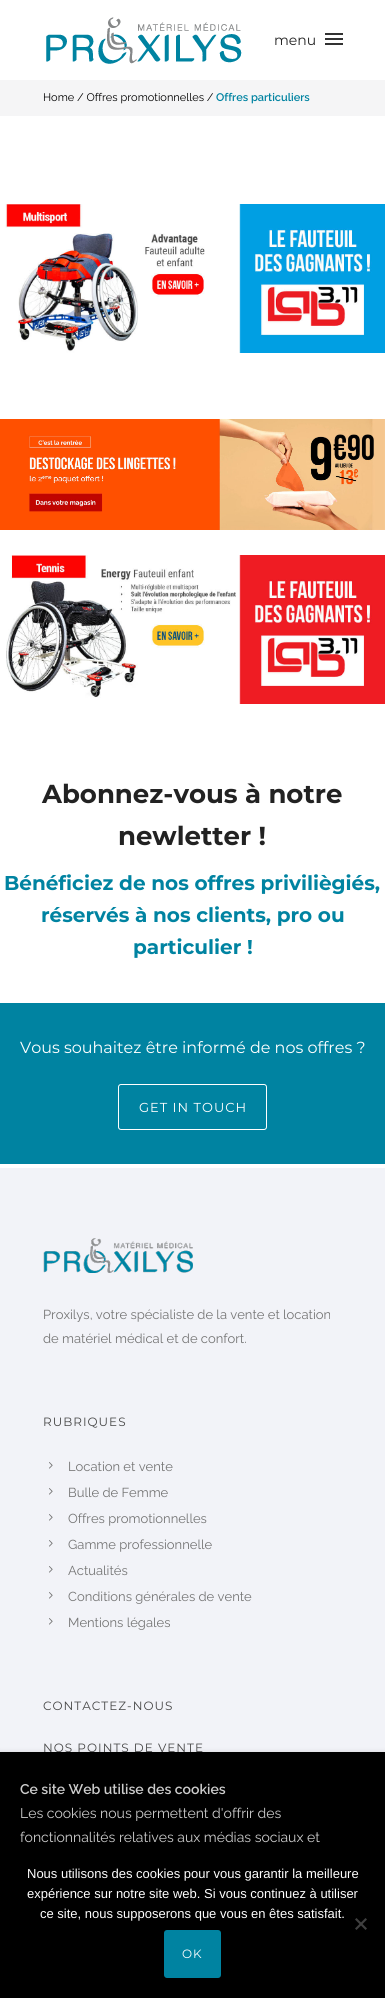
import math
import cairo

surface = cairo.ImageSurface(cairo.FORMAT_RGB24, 385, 1998)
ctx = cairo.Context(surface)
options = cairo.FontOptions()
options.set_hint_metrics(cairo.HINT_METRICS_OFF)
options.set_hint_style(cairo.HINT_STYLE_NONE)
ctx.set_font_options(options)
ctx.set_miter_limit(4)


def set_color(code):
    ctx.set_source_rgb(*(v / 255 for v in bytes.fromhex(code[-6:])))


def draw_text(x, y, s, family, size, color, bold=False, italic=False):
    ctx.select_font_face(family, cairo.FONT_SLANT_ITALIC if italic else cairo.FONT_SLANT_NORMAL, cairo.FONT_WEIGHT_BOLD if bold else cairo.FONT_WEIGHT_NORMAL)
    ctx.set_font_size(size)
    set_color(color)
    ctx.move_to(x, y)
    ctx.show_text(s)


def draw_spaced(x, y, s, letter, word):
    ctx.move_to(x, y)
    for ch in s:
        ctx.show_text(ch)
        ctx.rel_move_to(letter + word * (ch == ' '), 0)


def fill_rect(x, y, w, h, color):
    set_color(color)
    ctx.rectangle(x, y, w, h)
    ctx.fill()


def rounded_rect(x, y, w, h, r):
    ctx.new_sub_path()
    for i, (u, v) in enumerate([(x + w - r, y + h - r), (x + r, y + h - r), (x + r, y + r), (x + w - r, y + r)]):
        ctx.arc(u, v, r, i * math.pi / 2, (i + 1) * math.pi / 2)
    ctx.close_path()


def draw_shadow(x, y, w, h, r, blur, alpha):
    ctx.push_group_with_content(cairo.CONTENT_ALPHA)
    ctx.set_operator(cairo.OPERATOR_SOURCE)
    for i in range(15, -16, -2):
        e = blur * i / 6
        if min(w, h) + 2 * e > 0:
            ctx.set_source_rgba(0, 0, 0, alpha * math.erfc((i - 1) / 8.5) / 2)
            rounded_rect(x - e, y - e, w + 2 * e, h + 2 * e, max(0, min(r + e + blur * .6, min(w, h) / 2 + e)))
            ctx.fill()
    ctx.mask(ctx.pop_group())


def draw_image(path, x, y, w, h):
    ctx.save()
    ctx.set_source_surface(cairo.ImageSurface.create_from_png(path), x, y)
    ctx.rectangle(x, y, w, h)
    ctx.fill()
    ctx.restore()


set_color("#ffffff")
ctx.paint()
draw_image("assets/img1.png", 46, 17, 196, 47)
draw_text(274, 45, "menu", "Montserrat", 14, "#222222")
fill_rect(325, 33, 18, 2, "#323232")
fill_rect(325, 38, 18, 2, "#323232")
fill_rect(325, 43, 18, 2, "#323232")
fill_rect(0, 80, 385, 36, "#f5f5f6")
draw_text(43, 101, "Home / Offres promotionnelles /", "Raleway", 11, "#000000")
draw_text(216, 101, "Offres particuliers", "Raleway SemiBold", 11, "#0083a1")
draw_image("assets/img2.png", 5, 204, 380, 149)
draw_image("assets/img3.png", 0, 419, 385, 111)
draw_image("assets/img4.png", 6, 555, 379, 149)
draw_text(42, 803, "Abonnez-vous à notre", "Montserrat", 26, "#222222", bold=True)
draw_text(118, 845, "newletter !", "Montserrat", 26, "#222222", bold=True)
draw_text(4, 890, "Bénéficiez de nos offres priviliègiés,", "Montserrat", 20, "#0083a1", bold=True)
draw_text(41, 922, "réservés à nos clients, pro ou", "Montserrat", 20, "#0083a1", bold=True)
draw_text(133, 954, "particulier !", "Montserrat", 20, "#0083a1", bold=True)
fill_rect(0, 1003, 385, 161, "#0083a1")
draw_text(20, 1053, "Vous souhaitez être informé de nos offres ?", "Montserrat", 16, "#ffffff")
rounded_rect(118.5, 1084.5, 148, 45, 2.5)
ctx.set_line_width(1)
ctx.stroke()
ctx.set_font_size(13)
draw_spaced(139, 1112, "GET IN TOUCH", 1, 0)
fill_rect(0, 1168, 385, 584, "#f2f3f8")
draw_image("assets/img5.png", 43, 1238, 150, 35)
draw_text(43, 1319, "Proxilys, votre spécialiste de la vente et location", "Raleway", 13, "#757575")
draw_text(43, 1343, "de matériel médical et de confort.", "Raleway", 13, "#757575")
ctx.select_font_face("Montserrat")
ctx.set_font_size(12)
set_color("#474747")
draw_spaced(43, 1426, "RUBRIQUES", 1, 0)
draw_image("assets/img6.png", 49, 1462, 4, 7)
draw_text(68, 1471, "Location et vente", "Raleway", 13, "#757575")
draw_image("assets/img6.png", 49, 1488, 4, 7)
draw_text(68, 1497, "Bulle de Femme", "Raleway", 13, "#757575")
draw_image("assets/img6.png", 49, 1514, 4, 7)
draw_text(68, 1523, "Offres promotionnelles", "Raleway", 13, "#757575")
draw_image("assets/img6.png", 49, 1540, 4, 7)
draw_text(68, 1549, "Gamme professionnelle", "Raleway", 13, "#757575")
draw_image("assets/img6.png", 49, 1566, 4, 7)
draw_text(68, 1575, "Actualités", "Raleway", 13, "#757575")
draw_image("assets/img6.png", 49, 1592, 4, 7)
draw_text(68, 1601, "Conditions générales de vente", "Raleway", 13, "#757575")
draw_image("assets/img6.png", 49, 1618, 4, 7)
draw_text(68, 1627, "Mentions légales", "Raleway", 13, "#757575")
ctx.select_font_face("Montserrat")
ctx.set_font_size(12)
set_color("#474747")
draw_spaced(43, 1710, "CONTACTEZ-NOUS", 1, 0)
draw_spaced(43, 1752, "NOS POINTS DE VENTE", 1, 0)
set_color("#0c0c0d")
draw_shadow(0, 1751, 385, 246, 0, 2, 0.1)
fill_rect(0, 1752, 385, 246, "#000000")
draw_text(20, 1794, "Ce site Web utilise des cookies", "Raleway SemiBold", 14, "#cccccc")
draw_text(20, 1818, "Les cookies nous permettent d'offrir des", "Raleway", 14, "#cccccc")
draw_text(20, 1842, "fonctionnalités relatives aux médias sociaux et", "Raleway", 14, "#cccccc")
draw_text(27, 1878, "Nous utilisons des cookies pour vous garantir la meilleure", "Liberation Sans", 13, "#ffffff")
draw_text(27, 1898, "expérience sur notre site web. Si vous continuez à utiliser", "Liberation Sans", 13, "#ffffff")
draw_text(40, 1918, "ce site, nous supposerons que vous en êtes satisfait.", "Liberation Sans", 13, "#ffffff")
set_color("#404040")
ctx.new_path()
ctx.move_to(365.5, 1918)
ctx.line_to(367, 1919.5)
ctx.line_to(356.5, 1930)
ctx.line_to(355, 1928.5)
ctx.close_path()
ctx.fill()
ctx.new_path()
ctx.move_to(355, 1919.5)
ctx.line_to(356.5, 1918)
ctx.line_to(367, 1928.5)
ctx.line_to(365.5, 1930)
ctx.close_path()
ctx.fill()
set_color("#0083a1")
rounded_rect(164, 1930, 57, 48, 3)
ctx.fill()
ctx.select_font_face("Montserrat")
ctx.set_font_size(12)
set_color("#ffffff")
draw_spaced(182, 1958, "OK", 1, 0)
surface.write_to_png("output.png")
